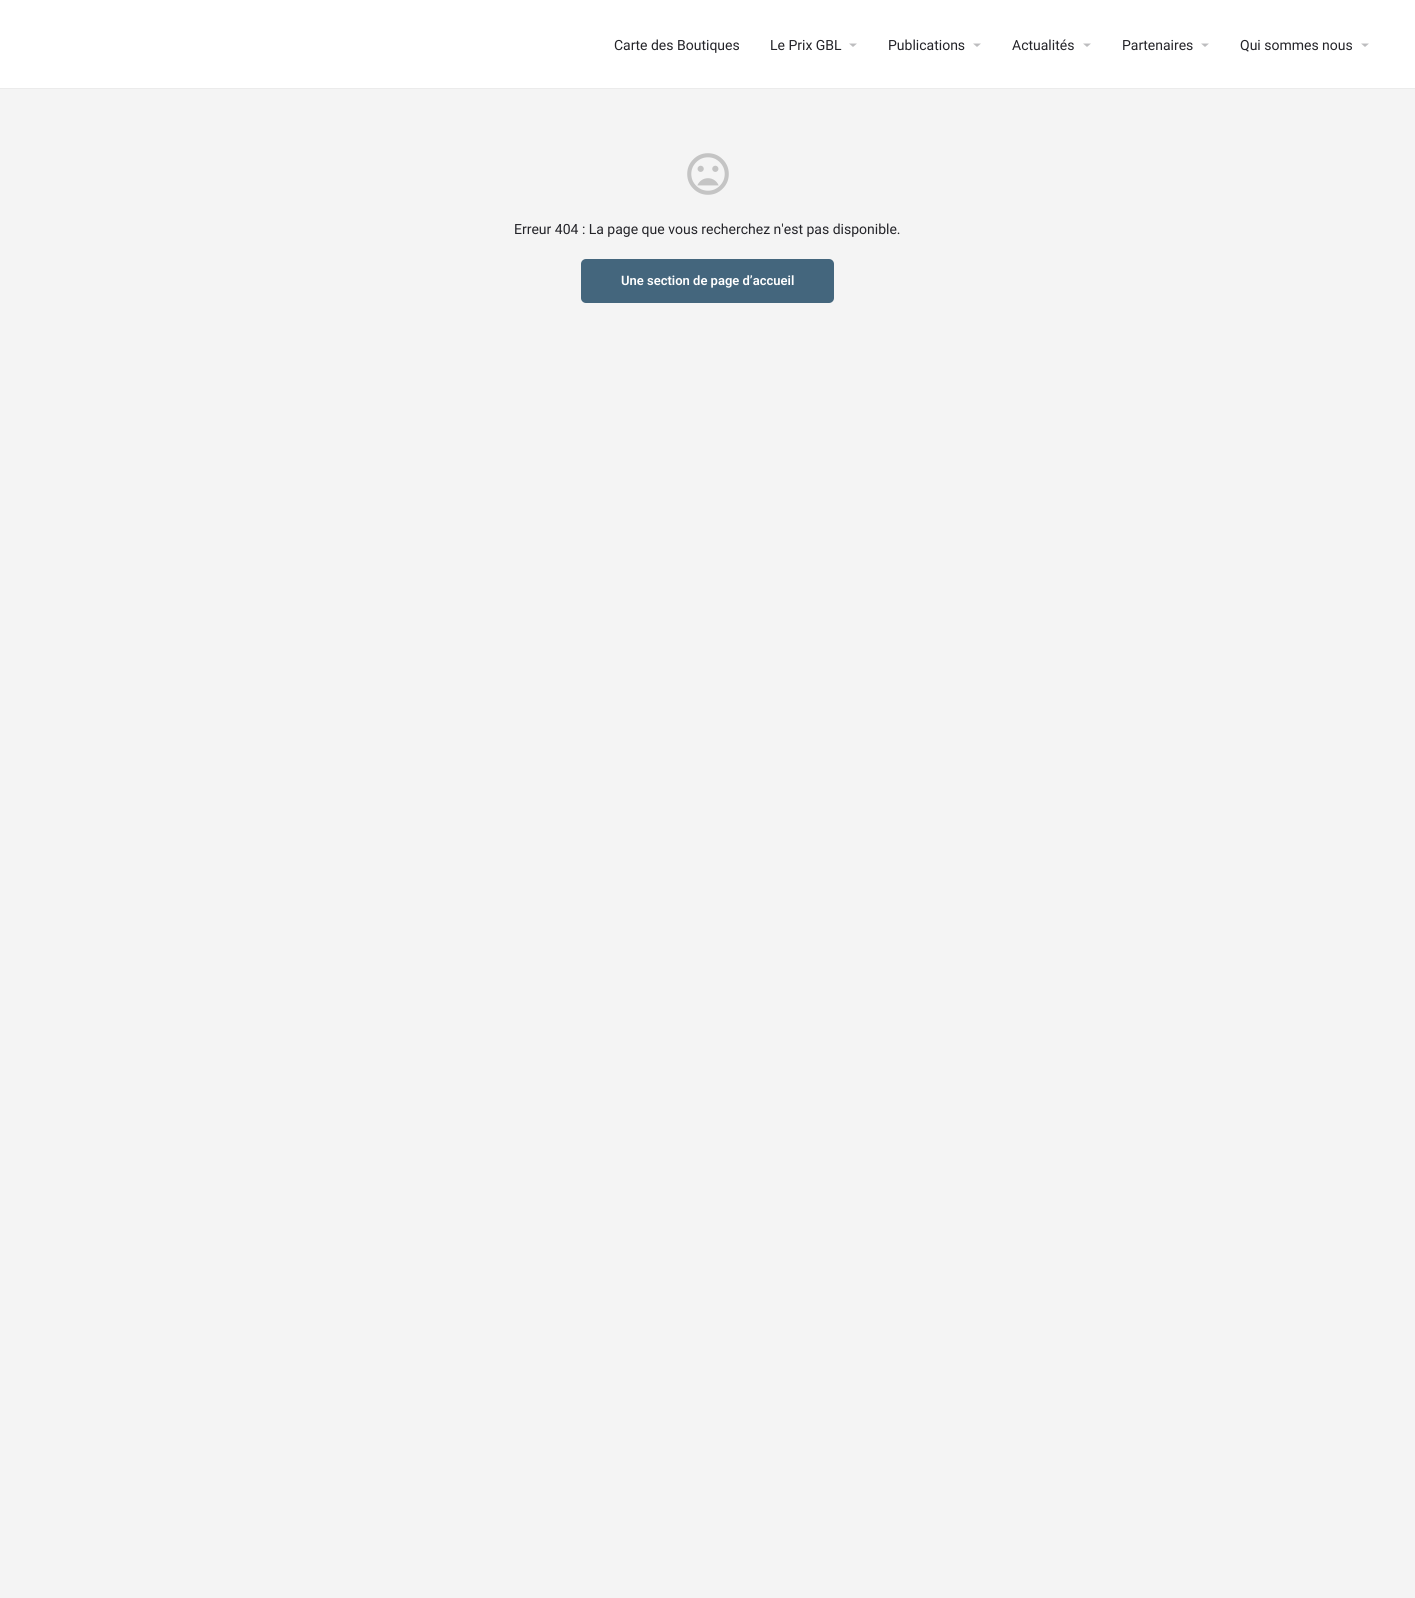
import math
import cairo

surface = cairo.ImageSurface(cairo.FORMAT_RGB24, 1415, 1598)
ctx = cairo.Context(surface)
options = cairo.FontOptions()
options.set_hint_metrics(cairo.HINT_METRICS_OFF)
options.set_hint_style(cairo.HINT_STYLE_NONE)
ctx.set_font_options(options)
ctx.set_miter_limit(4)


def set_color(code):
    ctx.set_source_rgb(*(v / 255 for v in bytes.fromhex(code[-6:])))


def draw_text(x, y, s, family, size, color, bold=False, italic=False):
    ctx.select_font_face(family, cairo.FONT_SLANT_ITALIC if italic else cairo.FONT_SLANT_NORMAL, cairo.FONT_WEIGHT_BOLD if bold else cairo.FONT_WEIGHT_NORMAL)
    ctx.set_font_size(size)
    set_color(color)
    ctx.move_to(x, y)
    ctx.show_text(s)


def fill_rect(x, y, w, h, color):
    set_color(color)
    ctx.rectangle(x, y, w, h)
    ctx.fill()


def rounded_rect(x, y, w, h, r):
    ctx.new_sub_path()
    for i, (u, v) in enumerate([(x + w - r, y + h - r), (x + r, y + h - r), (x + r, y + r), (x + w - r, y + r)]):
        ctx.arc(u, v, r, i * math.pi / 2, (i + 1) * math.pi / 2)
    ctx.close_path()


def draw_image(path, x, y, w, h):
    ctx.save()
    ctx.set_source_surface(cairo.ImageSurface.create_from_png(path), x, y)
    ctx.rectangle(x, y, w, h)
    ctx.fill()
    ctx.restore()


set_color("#f4f4f4")
ctx.paint()
fill_rect(0, 0, 1415, 88, "#ffffff")
fill_rect(0, 88, 1415, 1, "#ebebeb")
draw_text(614, 50, "Carte des Boutiques", "Roboto", 14, "#242429")
draw_text(770, 50, "Le Prix GBL", "Roboto", 14, "#242429")
set_color("#bdbdbf")
ctx.new_path()
ctx.move_to(849, 43.5)
ctx.line_to(857, 43.5)
ctx.line_to(853, 47)
ctx.close_path()
ctx.fill()
draw_text(888, 50, "Publications", "Roboto", 14, "#242429")
set_color("#bdbdbf")
ctx.new_path()
ctx.move_to(973, 43.5)
ctx.line_to(981, 43.5)
ctx.line_to(977, 47)
ctx.close_path()
ctx.fill()
draw_text(1012, 50, "Actualités", "Roboto", 14, "#242429")
set_color("#bdbdbf")
ctx.new_path()
ctx.move_to(1083, 43.5)
ctx.line_to(1091, 43.5)
ctx.line_to(1087, 47)
ctx.close_path()
ctx.fill()
draw_text(1122, 50, "Partenaires", "Roboto", 14, "#242429")
set_color("#bdbdbf")
ctx.new_path()
ctx.move_to(1201, 43.5)
ctx.line_to(1209, 43.5)
ctx.line_to(1205, 47)
ctx.close_path()
ctx.fill()
draw_text(1240, 50, "Qui sommes nous", "Roboto", 14, "#242429")
set_color("#bdbdbf")
ctx.new_path()
ctx.move_to(1361, 43.5)
ctx.line_to(1369, 43.5)
ctx.line_to(1365, 47)
ctx.close_path()
ctx.fill()
draw_image("assets/img1.png", 687, 153, 42, 42)
draw_text(514, 234, "Erreur 404 : La page que vous recherchez n'est pas disponible.", "Roboto", 14, "#242429")
set_color("#44667d")
rounded_rect(581, 259, 253, 44, 5)
ctx.fill()
draw_text(621, 285, "Une section de page d’accueil", "Roboto SemiBold", 13, "#ffffff")
surface.write_to_png("output.png")
